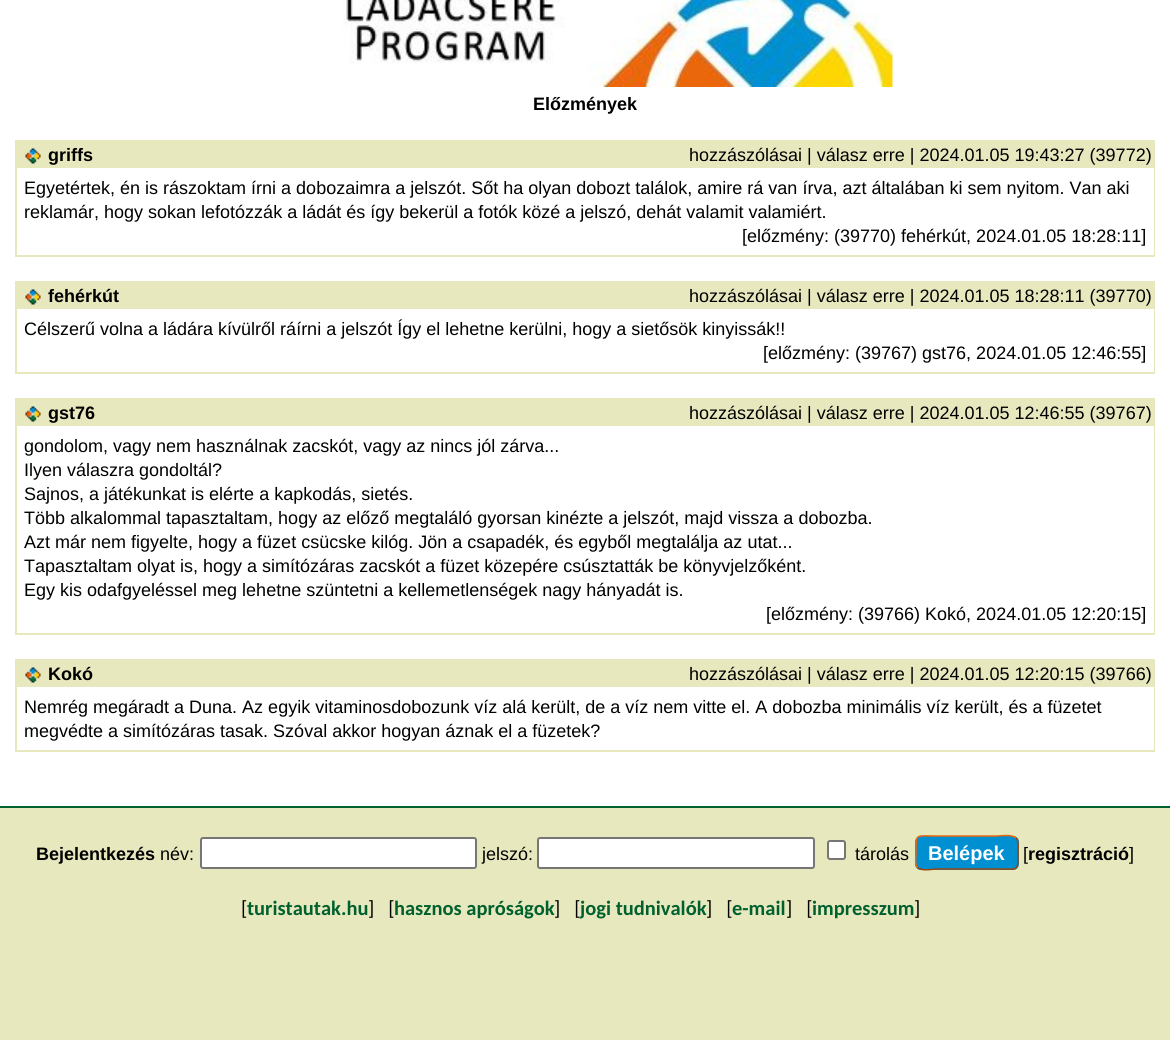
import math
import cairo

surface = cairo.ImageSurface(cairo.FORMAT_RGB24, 1170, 1040)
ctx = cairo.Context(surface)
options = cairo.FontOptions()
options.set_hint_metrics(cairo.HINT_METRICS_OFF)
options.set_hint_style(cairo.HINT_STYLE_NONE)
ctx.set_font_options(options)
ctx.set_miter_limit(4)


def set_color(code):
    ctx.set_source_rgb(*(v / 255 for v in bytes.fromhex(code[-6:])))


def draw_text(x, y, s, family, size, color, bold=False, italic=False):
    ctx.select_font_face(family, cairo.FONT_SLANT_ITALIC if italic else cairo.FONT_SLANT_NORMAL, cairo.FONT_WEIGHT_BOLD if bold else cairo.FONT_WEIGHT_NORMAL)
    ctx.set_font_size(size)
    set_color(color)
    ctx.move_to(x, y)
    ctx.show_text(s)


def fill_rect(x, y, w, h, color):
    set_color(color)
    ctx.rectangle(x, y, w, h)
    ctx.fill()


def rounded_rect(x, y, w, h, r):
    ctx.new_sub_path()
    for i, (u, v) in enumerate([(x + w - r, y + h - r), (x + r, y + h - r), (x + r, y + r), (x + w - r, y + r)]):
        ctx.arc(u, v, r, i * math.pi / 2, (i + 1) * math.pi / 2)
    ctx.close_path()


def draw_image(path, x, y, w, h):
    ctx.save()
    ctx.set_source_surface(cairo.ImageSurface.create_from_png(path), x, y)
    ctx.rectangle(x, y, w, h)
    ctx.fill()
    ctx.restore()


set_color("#e8e8bf")
ctx.paint()
fill_rect(0, 0, 1170, 806, "#ffffff")
fill_rect(0, 806, 1170, 2, "#00612e")
draw_image("assets/img1.png", 342, 0, 551, 87)
draw_text(533, 110, "Előzmények", "Liberation Sans", 18, "#000000", bold=True)
fill_rect(15, 140, 1140, 117, "#e8e8bf")
fill_rect(17, 168, 1137, 87, "#ffffff")
draw_image("assets/img2.png", 25, 148, 16, 16)
draw_text(48, 161, "griffs", "Liberation Sans", 18, "#000000", bold=True)
draw_text(689, 161, "hozzászólásai | válasz erre | 2024.01.05 19:43:27 (39772)", "Liberation Sans", 18, "#000000")
draw_text(24, 194, "Egyetértek, én is rászoktam írni a dobozaimra a jelszót. Sőt ha olyan dobozt találok, amire rá van írva, azt általában ki sem nyitom. Van aki", "Liberation Sans", 18, "#000000")
draw_text(24, 218, "reklamár, hogy sokan lefotózzák a ládát és így bekerül a fotók közé a jelszó, dehát valamit valamiért.", "Liberation Sans", 18, "#000000")
draw_text(742, 242, "[előzmény: (39770) fehérkút, 2024.01.05 18:28:11]", "Liberation Sans", 18, "#000000")
fill_rect(15, 281, 1140, 93, "#e8e8bf")
fill_rect(17, 309, 1137, 63, "#ffffff")
draw_image("assets/img2.png", 25, 289, 16, 16)
draw_text(48, 302, "fehérkút", "Liberation Sans", 18, "#000000", bold=True)
draw_text(689, 302, "hozzászólásai | válasz erre | 2024.01.05 18:28:11 (39770)", "Liberation Sans", 18, "#000000")
draw_text(24, 335, "Célszerű volna a ládára kívülről ráírni a jelszót Így el lehetne kerülni, hogy a sietősök kinyissák!!", "Liberation Sans", 18, "#000000")
draw_text(763, 359, "[előzmény: (39767) gst76, 2024.01.05 12:46:55]", "Liberation Sans", 18, "#000000")
fill_rect(15, 398, 1140, 237, "#e8e8bf")
fill_rect(17, 426, 1137, 207, "#ffffff")
draw_image("assets/img2.png", 25, 406, 16, 16)
draw_text(48, 419, "gst76", "Liberation Sans", 18, "#000000", bold=True)
draw_text(689, 419, "hozzászólásai | válasz erre | 2024.01.05 12:46:55 (39767)", "Liberation Sans", 18, "#000000")
draw_text(24, 452, "gondolom, vagy nem használnak zacskót, vagy az nincs jól zárva...", "Liberation Sans", 18, "#000000")
draw_text(24, 476, "Ilyen válaszra gondoltál?", "Liberation Sans", 18, "#000000")
draw_text(24, 500, "Sajnos, a játékunkat is elérte a kapkodás, sietés.", "Liberation Sans", 18, "#000000")
draw_text(24, 524, "Több alkalommal tapasztaltam, hogy az előző megtaláló gyorsan kinézte a jelszót, majd vissza a dobozba.", "Liberation Sans", 18, "#000000")
draw_text(24, 548, "Azt már nem figyelte, hogy a füzet csücske kilóg. Jön a csapadék, és egyből megtalálja az utat...", "Liberation Sans", 18, "#000000")
draw_text(24, 572, "Tapasztaltam olyat is, hogy a simítózáras zacskót a füzet közepére csúsztatták be könyvjelzőként.", "Liberation Sans", 18, "#000000")
draw_text(24, 596, "Egy kis odafgyeléssel meg lehetne szüntetni a kellemetlenségek nagy hányadát is.", "Liberation Sans", 18, "#000000")
draw_text(766, 620, "[előzmény: (39766) Kokó, 2024.01.05 12:20:15]", "Liberation Sans", 18, "#000000")
fill_rect(15, 659, 1140, 93, "#e8e8bf")
fill_rect(17, 687, 1137, 63, "#ffffff")
draw_image("assets/img2.png", 25, 667, 16, 16)
draw_text(48, 680, "Kokó", "Liberation Sans", 18, "#000000", bold=True)
draw_text(689, 680, "hozzászólásai | válasz erre | 2024.01.05 12:20:15 (39766)", "Liberation Sans", 18, "#000000")
draw_text(24, 713, "Nemrég megáradt a Duna. Az egyik vitaminosdobozunk víz alá került, de a víz nem vitte el. A dobozba minimális víz került, és a füzetet", "Liberation Sans", 18, "#000000")
draw_text(24, 737, "megvédte a simítózáras tasak. Szóval akkor hogyan áznak el a füzetek?", "Liberation Sans", 18, "#000000")
draw_text(36, 860, "Bejelentkezés", "Liberation Sans", 18, "#000000", bold=True)
draw_text(160, 860, "név:", "Liberation Sans", 18, "#000000")
set_color("#ffffff")
rounded_rect(201, 838, 275, 30, 2)
ctx.fill_preserve()
set_color("#767676")
ctx.stroke()
draw_text(482, 860, "jelszó:", "Liberation Sans", 18, "#000000")
set_color("#ffffff")
rounded_rect(538, 838, 276, 30, 2)
ctx.fill_preserve()
set_color("#767676")
ctx.stroke()
set_color("#ffffff")
rounded_rect(828, 841, 17, 18, 2)
ctx.fill_preserve()
set_color("#767676")
ctx.stroke()
draw_text(855, 860, "tárolás", "Liberation Sans", 18, "#000000")
set_color("#008fd1")
rounded_rect(915, 836, 104, 34, 6)
ctx.fill()
ctx.new_path()
ctx.move_to(1016, 838)
ctx.curve_to(1019, 840.5, 1018, 849, 1018, 853)
ctx.curve_to(1018, 872.5, 1018.5, 869, 997, 869)
ctx.line_to(936, 869)
ctx.curve_to(934.5, 869, 921, 871.5, 917.5, 867.5)
set_color("#9c4508")
ctx.set_line_width(1.5)
ctx.stroke()
ctx.new_path()
ctx.move_to(917.5, 867.5)
ctx.curve_to(914.5, 865, 916, 856.5, 916, 853)
ctx.curve_to(916, 833, 915, 836, 936, 836)
ctx.line_to(997, 836)
ctx.curve_to(999, 836, 1012.5, 834, 1016, 838)
set_color("#ea670c")
ctx.stroke()
draw_text(928, 860, "Belépek", "Liberation Sans", 20, "#ffffff", bold=True)
draw_text(1023, 860, "[", "Liberation Sans", 18, "#000000")
draw_text(1028, 860, "regisztráció", "Liberation Sans", 18, "#000000", bold=True)
draw_text(1129, 860, "]", "Liberation Sans", 18, "#000000")
draw_text(241, 915, "[", "Carlito", 20.5, "#000000")
draw_text(247, 915, "turistautak.hu", "Carlito", 20.5, "#00612e", bold=True)
draw_text(368, 915, "]   [", "Carlito", 20.5, "#000000")
draw_text(394, 915, "hasznos apróságok", "Carlito", 20.5, "#00612e", bold=True)
draw_text(554, 915, "]   [", "Carlito", 20.5, "#000000")
draw_text(580, 915, "jogi tudnivalók", "Carlito", 20.5, "#00612e", bold=True)
draw_text(706, 915, "]   [", "Carlito", 20.5, "#000000")
draw_text(732, 915, "e-mail", "Carlito", 20.5, "#00612e", bold=True)
draw_text(786, 915, "]   [", "Carlito", 20.5, "#000000")
draw_text(812, 915, "impresszum", "Carlito", 20.5, "#00612e", bold=True)
draw_text(914, 915, "]", "Carlito", 20.5, "#000000")
surface.write_to_png("output.png")
